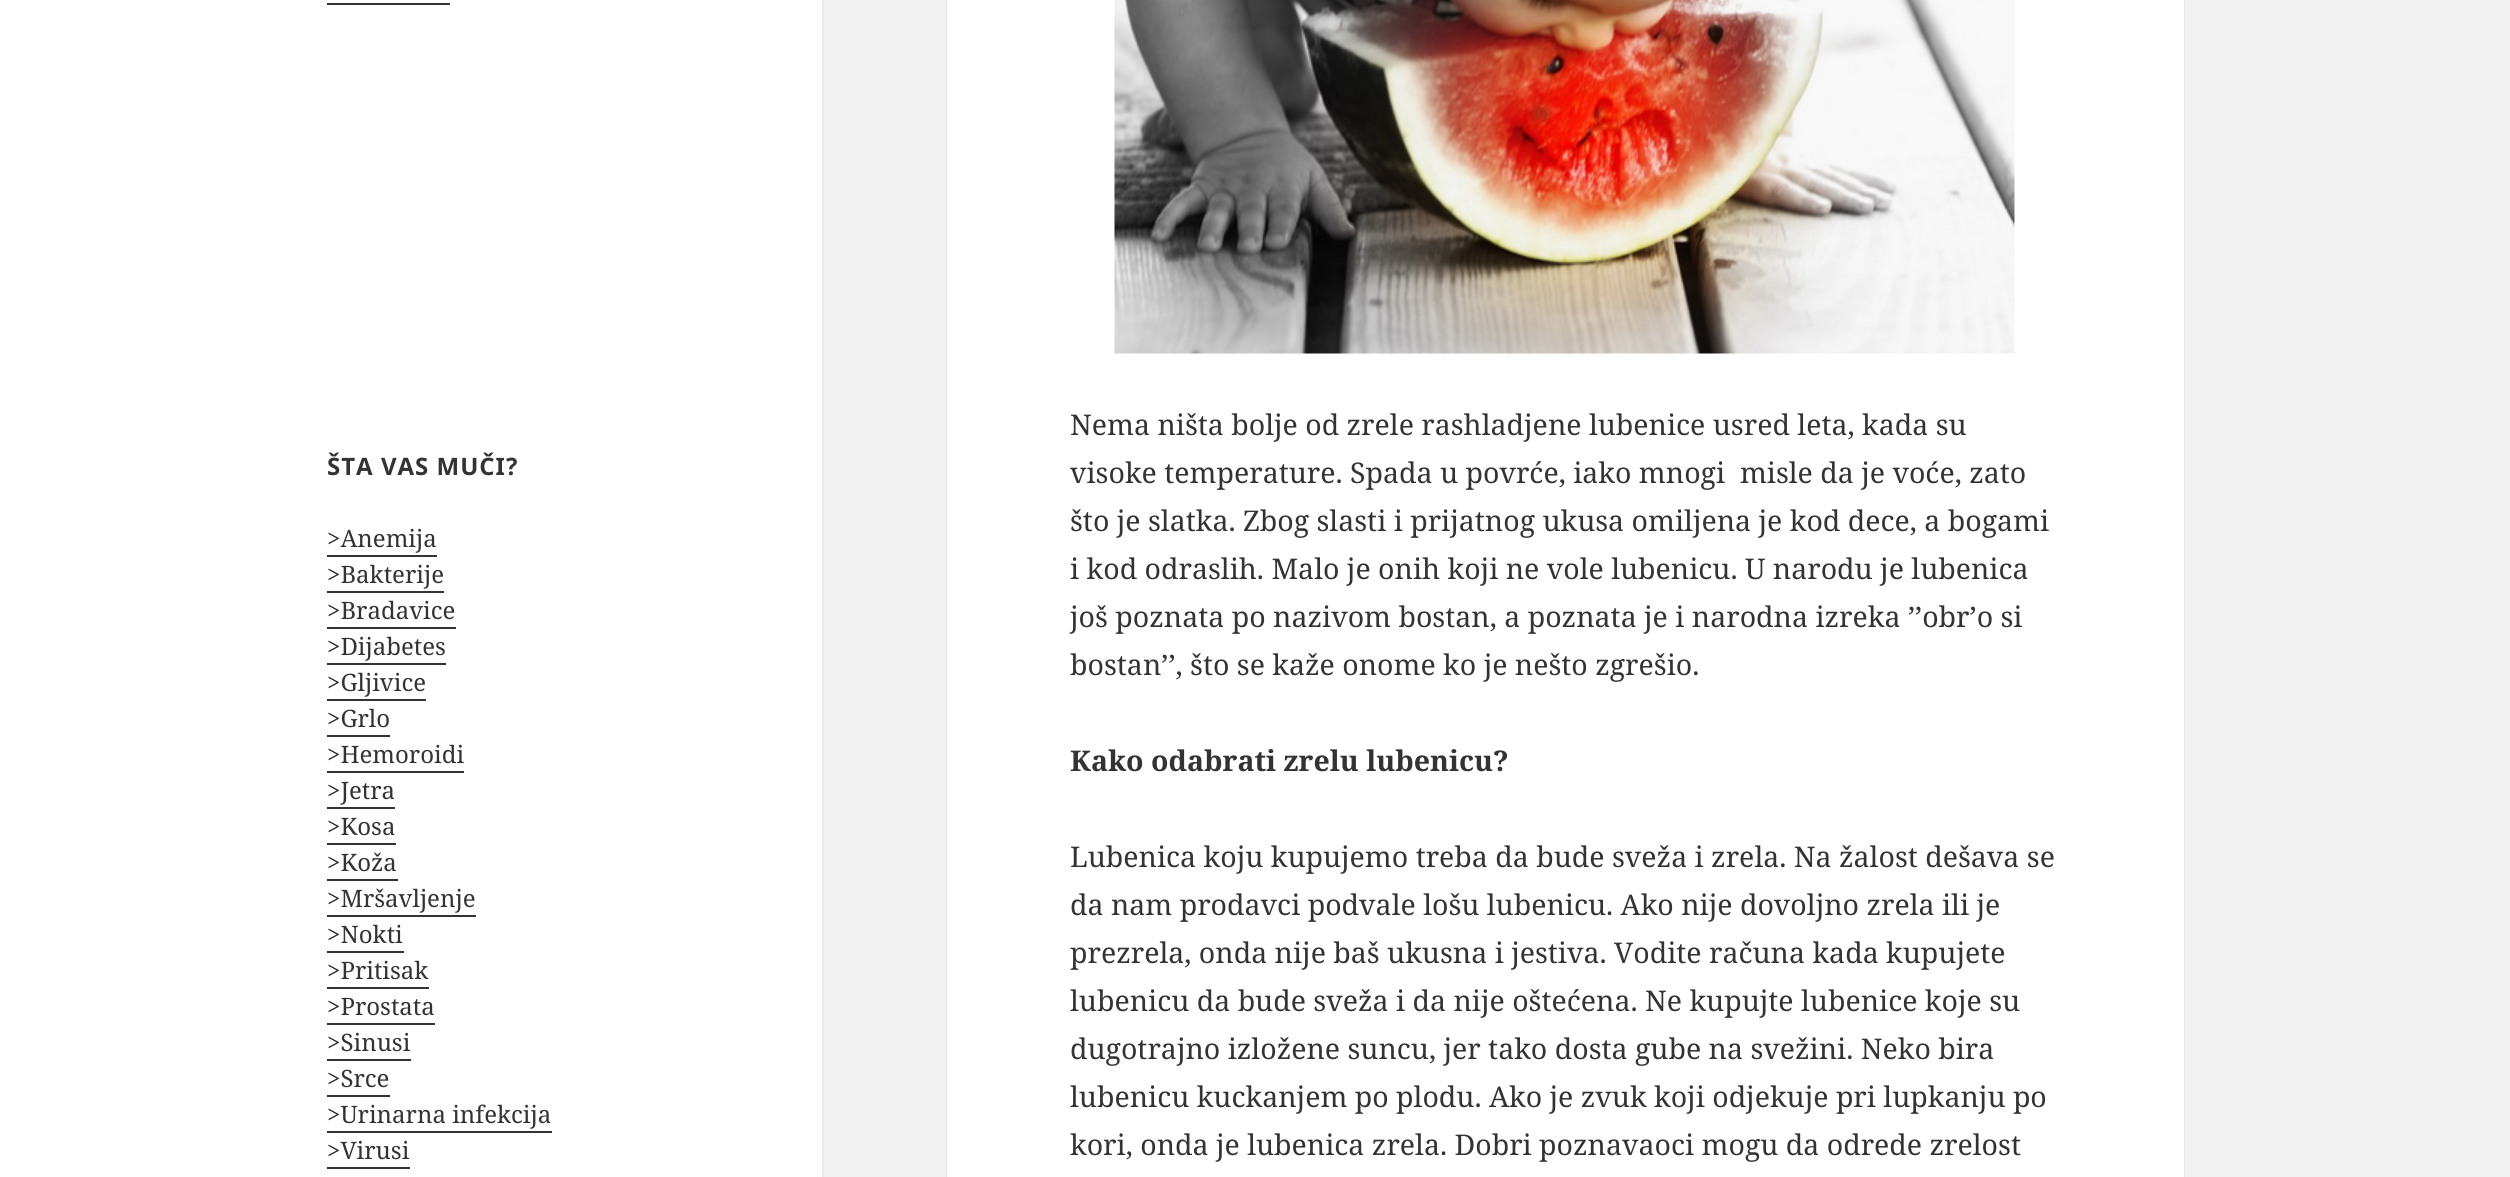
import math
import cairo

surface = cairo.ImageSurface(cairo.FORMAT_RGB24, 2510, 1177)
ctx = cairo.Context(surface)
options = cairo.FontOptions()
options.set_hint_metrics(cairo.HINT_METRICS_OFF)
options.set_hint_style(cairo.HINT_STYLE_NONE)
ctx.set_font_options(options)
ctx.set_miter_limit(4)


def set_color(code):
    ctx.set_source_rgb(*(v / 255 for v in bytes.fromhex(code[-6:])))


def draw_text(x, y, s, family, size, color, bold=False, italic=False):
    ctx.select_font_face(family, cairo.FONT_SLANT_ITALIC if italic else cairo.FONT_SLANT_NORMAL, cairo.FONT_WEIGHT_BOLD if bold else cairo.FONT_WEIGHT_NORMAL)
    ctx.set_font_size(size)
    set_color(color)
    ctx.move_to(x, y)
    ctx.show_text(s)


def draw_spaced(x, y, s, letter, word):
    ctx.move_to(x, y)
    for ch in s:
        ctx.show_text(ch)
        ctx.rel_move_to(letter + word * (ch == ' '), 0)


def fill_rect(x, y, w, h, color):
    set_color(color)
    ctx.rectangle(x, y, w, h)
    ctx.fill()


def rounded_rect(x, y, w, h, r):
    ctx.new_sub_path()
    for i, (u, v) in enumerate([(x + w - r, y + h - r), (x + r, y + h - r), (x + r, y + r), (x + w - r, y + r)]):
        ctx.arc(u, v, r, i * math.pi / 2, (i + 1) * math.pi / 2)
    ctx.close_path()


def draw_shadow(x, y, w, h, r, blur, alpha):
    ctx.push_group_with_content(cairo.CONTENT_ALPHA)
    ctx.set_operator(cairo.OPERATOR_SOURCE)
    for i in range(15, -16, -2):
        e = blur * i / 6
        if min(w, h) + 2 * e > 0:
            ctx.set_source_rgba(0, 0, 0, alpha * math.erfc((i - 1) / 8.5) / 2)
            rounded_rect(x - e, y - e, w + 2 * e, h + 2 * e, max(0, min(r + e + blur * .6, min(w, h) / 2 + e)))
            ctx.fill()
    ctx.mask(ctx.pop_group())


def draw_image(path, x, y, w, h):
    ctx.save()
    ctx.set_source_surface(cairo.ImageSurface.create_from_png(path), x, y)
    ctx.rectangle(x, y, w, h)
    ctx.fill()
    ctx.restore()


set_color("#f1f1f1")
ctx.paint()
set_color("#000000")
draw_shadow(0, 0, 822, 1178, 0, 1, 0.15)
fill_rect(0, 0, 822, 1177, "#ffffff")
fill_rect(327, 3, 123, 2, "#333333")
ctx.select_font_face("Noto Sans", cairo.FONT_SLANT_NORMAL, cairo.FONT_WEIGHT_BOLD)
ctx.set_font_size(24)
draw_spaced(327, 475, "ŠTA VAS MUČI?", 1, 0)
draw_text(327, 547, ">Anemija", "Noto Serif", 24, "#333333")
fill_rect(327, 555, 110, 2, "#333333")
draw_text(327, 583, ">Bakterije", "Noto Serif", 24, "#333333")
fill_rect(327, 591, 117, 2, "#333333")
draw_text(327, 619, ">Bradavice", "Noto Serif", 24, "#333333")
fill_rect(327, 627, 129, 2, "#333333")
draw_text(327, 655, ">Dijabetes", "Noto Serif", 24, "#333333")
fill_rect(327, 663, 119, 2, "#333333")
draw_text(327, 691, ">Gljivice", "Noto Serif", 24, "#333333")
fill_rect(327, 699, 99, 2, "#333333")
draw_text(327, 727, ">Grlo", "Noto Serif", 24, "#333333")
fill_rect(327, 735, 63, 2, "#333333")
draw_text(327, 763, ">Hemoroidi", "Noto Serif", 24, "#333333")
fill_rect(327, 771, 137, 2, "#333333")
draw_text(327, 799, ">Jetra", "Noto Serif", 24, "#333333")
fill_rect(327, 807, 68, 2, "#333333")
draw_text(327, 835, ">Kosa", "Noto Serif", 24, "#333333")
fill_rect(327, 843, 69, 2, "#333333")
draw_text(327, 871, ">Koža", "Noto Serif", 24, "#333333")
fill_rect(327, 879, 71, 2, "#333333")
draw_text(327, 907, ">Mršavljenje", "Noto Serif", 24, "#333333")
fill_rect(327, 915, 149, 2, "#333333")
draw_text(327, 943, ">Nokti", "Noto Serif", 24, "#333333")
fill_rect(327, 951, 77, 2, "#333333")
draw_text(327, 979, ">Pritisak", "Noto Serif", 24, "#333333")
fill_rect(327, 987, 102, 2, "#333333")
draw_text(327, 1015, ">Prostata", "Noto Serif", 24, "#333333")
fill_rect(327, 1023, 108, 2, "#333333")
draw_text(327, 1051, ">Sinusi", "Noto Serif", 24, "#333333")
fill_rect(327, 1059, 84, 2, "#333333")
draw_text(327, 1087, ">Srce", "Noto Serif", 24, "#333333")
fill_rect(327, 1095, 63, 2, "#333333")
draw_text(327, 1123, ">Urinarna infekcija", "Noto Serif", 24, "#333333")
fill_rect(327, 1131, 225, 2, "#333333")
draw_text(327, 1159, ">Virusi", "Noto Serif", 24, "#333333")
fill_rect(327, 1167, 83, 2, "#333333")
set_color("#000000")
draw_shadow(947, -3, 1237, 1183, 0, 1, 0.15)
fill_rect(947, 0, 1237, 1177, "#ffffff")
draw_image("assets/img1.png", 1114, 0, 901, 354)
draw_text(1070, 435, "Nema ništa bolje od zrele rashladjene lubenice usred leta, kada su", "Noto Serif", 28.5, "#333333")
draw_text(1070, 483, "visoke temperature. Spada u povrće, iako mnogi  misle da je voće, zato", "Noto Serif", 28.5, "#333333")
draw_text(1070, 531, "što je slatka. Zbog slasti i prijatnog ukusa omiljena je kod dece, a bogami", "Noto Serif", 28.5, "#333333")
draw_text(1070, 579, "i kod odraslih. Malo je onih koji ne vole lubenicu. U narodu je lubenica", "Noto Serif", 28.5, "#333333")
draw_text(1070, 627, "još poznata po nazivom bostan, a poznata je i narodna izreka ’’obr’o si", "Noto Serif", 28.5, "#333333")
draw_text(1070, 675, "bostan’’, što se kaže onome ko je nešto zgrešio.", "Noto Serif", 28.5, "#333333")
draw_text(1070, 771, "Kako odabrati zrelu lubenicu?", "Noto Serif", 28.5, "#333333", bold=True)
draw_text(1070, 867, "Lubenica koju kupujemo treba da bude sveža i zrela. Na žalost dešava se", "Noto Serif", 28.5, "#333333")
draw_text(1070, 915, "da nam prodavci podvale lošu lubenicu. Ako nije dovoljno zrela ili je", "Noto Serif", 28.5, "#333333")
draw_text(1070, 963, "prezrela, onda nije baš ukusna i jestiva. Vodite računa kada kupujete", "Noto Serif", 28.5, "#333333")
draw_text(1070, 1011, "lubenicu da bude sveža i da nije oštećena. Ne kupujte lubenice koje su", "Noto Serif", 28.5, "#333333")
draw_text(1070, 1059, "dugotrajno izložene suncu, jer tako dosta gube na svežini. Neko bira", "Noto Serif", 28.5, "#333333")
draw_text(1070, 1107, "lubenicu kuckanjem po plodu. Ako je zvuk koji odjekuje pri lupkanju po", "Noto Serif", 28.5, "#333333")
draw_text(1070, 1155, "kori, onda je lubenica zrela. Dobri poznavaoci mogu da odrede zrelost", "Noto Serif", 28.5, "#333333")
surface.write_to_png("output.png")
